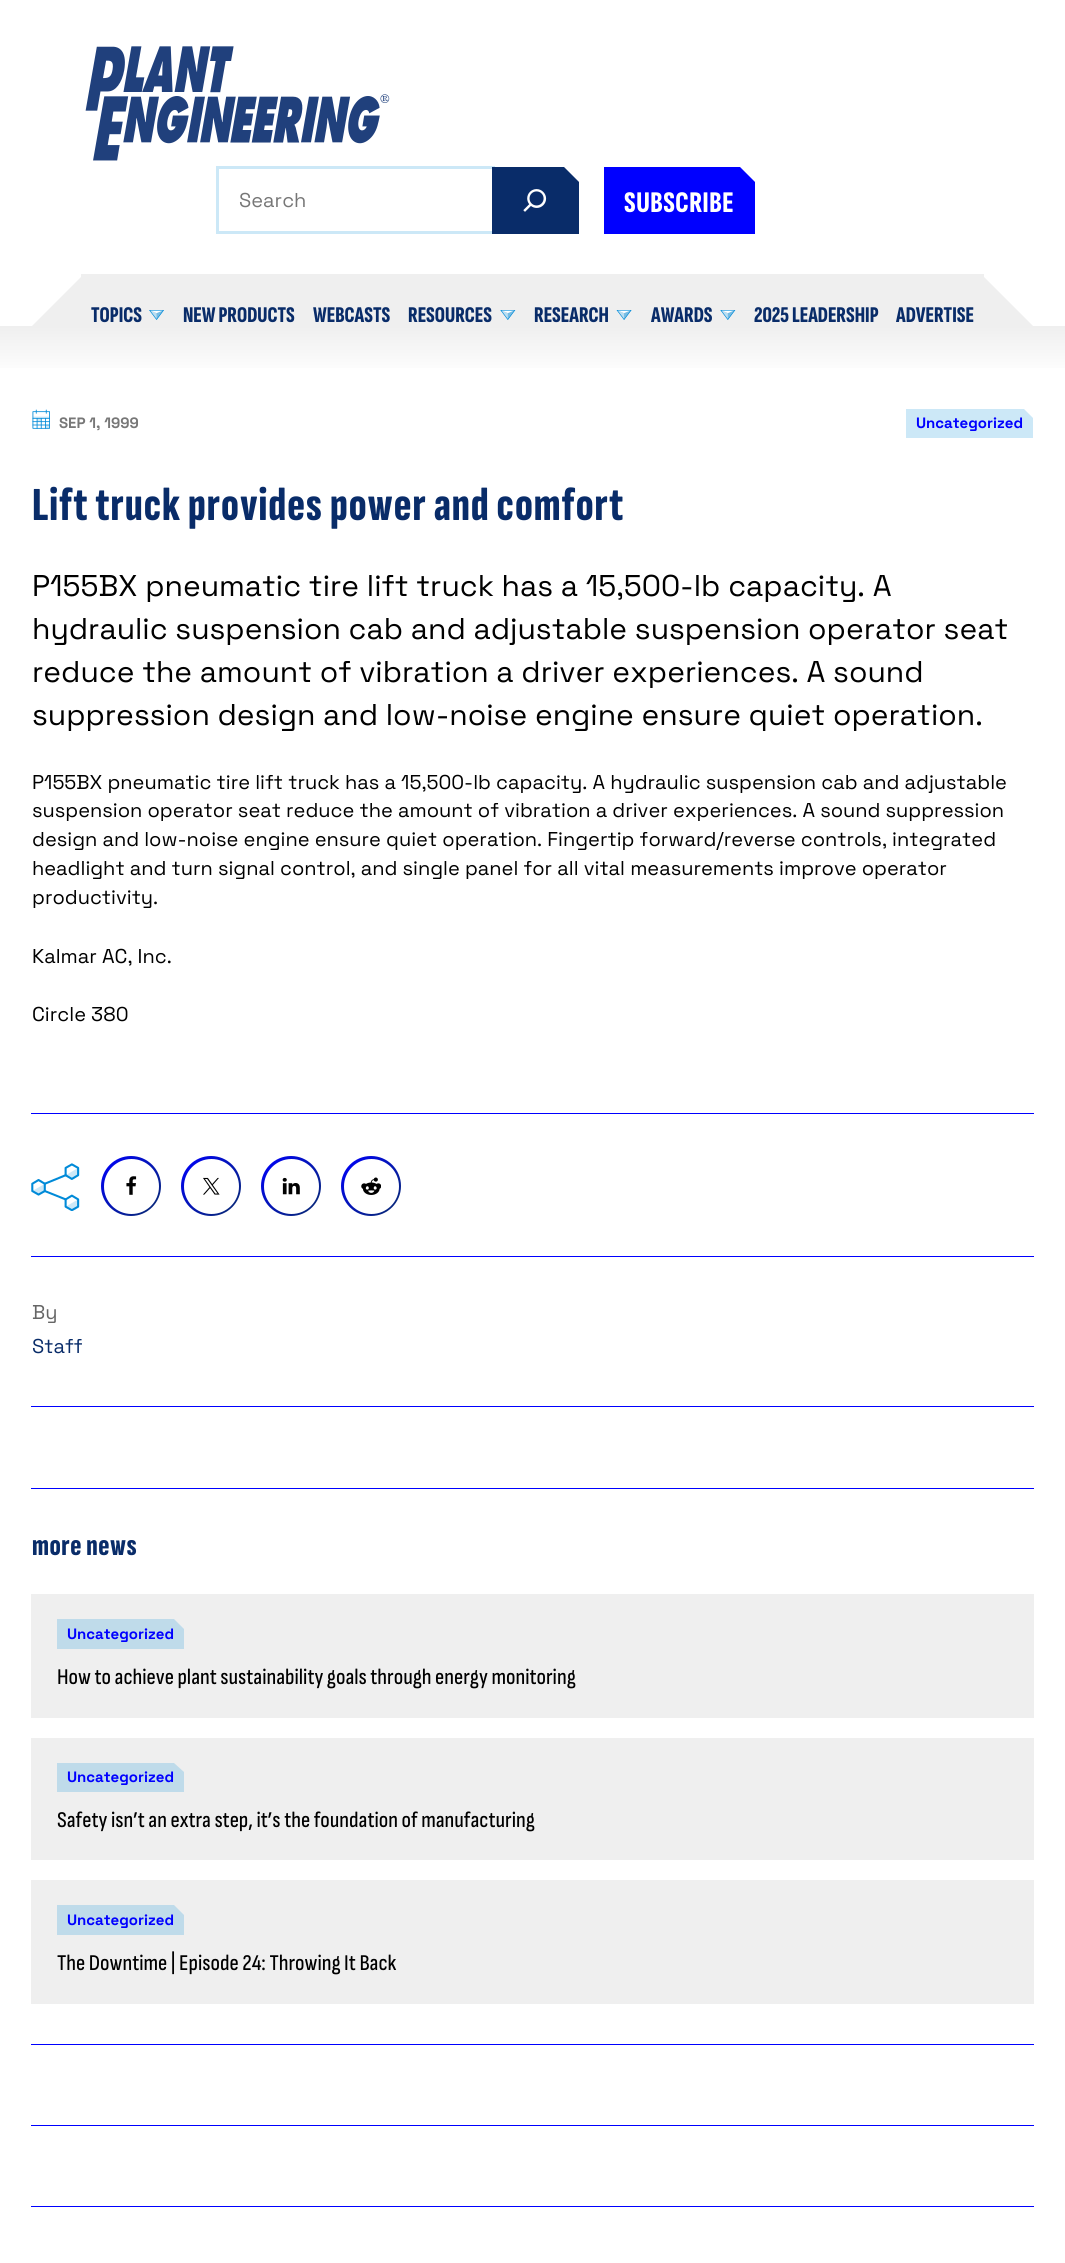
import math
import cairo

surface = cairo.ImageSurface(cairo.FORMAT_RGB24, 1065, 2263)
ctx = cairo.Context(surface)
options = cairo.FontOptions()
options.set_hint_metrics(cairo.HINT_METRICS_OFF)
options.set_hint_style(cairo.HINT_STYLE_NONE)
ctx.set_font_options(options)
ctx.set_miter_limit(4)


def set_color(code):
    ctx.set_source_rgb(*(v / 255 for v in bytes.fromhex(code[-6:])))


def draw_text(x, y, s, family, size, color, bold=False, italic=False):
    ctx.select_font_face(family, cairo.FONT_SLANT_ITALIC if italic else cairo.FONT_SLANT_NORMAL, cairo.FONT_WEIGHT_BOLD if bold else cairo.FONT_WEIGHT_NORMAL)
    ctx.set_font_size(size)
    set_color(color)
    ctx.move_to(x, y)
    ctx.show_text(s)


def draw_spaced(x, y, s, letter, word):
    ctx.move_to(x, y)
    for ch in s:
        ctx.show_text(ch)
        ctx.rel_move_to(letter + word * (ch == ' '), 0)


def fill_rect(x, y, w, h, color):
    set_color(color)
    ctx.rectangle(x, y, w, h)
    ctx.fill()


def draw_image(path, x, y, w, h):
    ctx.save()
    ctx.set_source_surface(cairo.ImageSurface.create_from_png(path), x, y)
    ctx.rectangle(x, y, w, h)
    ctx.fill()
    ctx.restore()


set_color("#ffffff")
ctx.paint()
set_color("#efefef")
ctx.new_path()
ctx.move_to(81, 277)
ctx.line_to(81, 326)
ctx.line_to(32, 326)
ctx.close_path()
ctx.fill()
draw_image("assets/img1.png", 85, 46, 305, 115)
ctx.rectangle(217.5, 167.5, 276, 65)
set_color("#cce8f7")
ctx.set_line_width(3)
ctx.stroke()
draw_text(239, 207, "Search", "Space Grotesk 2 Light", 20, "#777777")
set_color("#092c69")
ctx.new_path()
ctx.move_to(564, 167)
ctx.line_to(579, 182)
ctx.line_to(579, 234)
ctx.line_to(492, 234)
ctx.line_to(492, 167)
ctx.close_path()
ctx.fill()
draw_image("assets/img2.png", 523, 189, 24, 23)
set_color("#0000ff")
ctx.new_path()
ctx.move_to(740, 167)
ctx.line_to(755, 182)
ctx.line_to(755, 234)
ctx.line_to(604, 234)
ctx.line_to(604, 167)
ctx.close_path()
ctx.fill()
ctx.select_font_face("Sofia Sans Extra Condensed ExtraBold")
ctx.set_font_size(30)
set_color("#ffffff")
draw_spaced(624, 212, "SUBSCRIBE", 0.5, 0)
fill_rect(81, 274, 903, 52, "#efefef")
draw_text(91, 322, "TOPICS", "Sofia Sans Extra Condensed ExtraBold", 22.5, "#092c69")
draw_image("assets/img3.png", 149, 310, 15, 10)
draw_text(183, 322, "NEW PRODUCTS", "Sofia Sans Extra Condensed ExtraBold", 22.5, "#092c69")
draw_text(313, 322, "WEBCASTS", "Sofia Sans Extra Condensed ExtraBold", 22.5, "#092c69")
draw_text(408, 322, "RESOURCES", "Sofia Sans Extra Condensed ExtraBold", 22.5, "#092c69")
draw_image("assets/img4.png", 500, 310, 16, 10)
draw_text(534, 322, "RESEARCH", "Sofia Sans Extra Condensed ExtraBold", 22.5, "#092c69")
draw_image("assets/img5.png", 616, 310, 16, 10)
draw_text(651, 322, "AWARDS", "Sofia Sans Extra Condensed ExtraBold", 22.5, "#092c69")
draw_image("assets/img4.png", 720, 310, 16, 10)
draw_text(754, 322, "2025 LEADERSHIP", "Sofia Sans Extra Condensed ExtraBold", 22.5, "#092c69")
draw_text(896, 322, "ADVERTISE", "Sofia Sans Extra Condensed ExtraBold", 22.5, "#092c69")
set_color("#efefef")
ctx.new_path()
ctx.move_to(1033, 326)
ctx.line_to(984, 326)
ctx.line_to(984, 277)
ctx.close_path()
ctx.fill()
gradient = cairo.LinearGradient(533, 326, 533, 376)
gradient.add_color_stop_rgba(0, 0.937, 0.937, 0.937, 1)
gradient.add_color_stop_rgba(1, 1, 1, 1, 1)
ctx.set_source(gradient)
ctx.rectangle(0, 326, 1065, 42)
ctx.fill()
draw_image("assets/img6.png", 32, 409, 18, 20)
draw_text(59, 428, "SEP 1, 1999", "Space Grotesk Light", 15, "#777777")
set_color("#cce8f7")
ctx.new_path()
ctx.move_to(1024, 409)
ctx.line_to(1033, 418)
ctx.line_to(1033, 438)
ctx.line_to(906, 438)
ctx.line_to(906, 409)
ctx.close_path()
ctx.fill()
draw_text(916, 428, "Uncategorized", "Space Grotesk Light", 15, "#0000ff")
ctx.select_font_face("Sofia Sans Extra Condensed ExtraBold")
ctx.set_font_size(47.4)
set_color("#092c69")
draw_spaced(32, 520, "Lift truck provides power and comfort", 0.95, 0)
draw_text(32, 596, "P155BX pneumatic tire lift truck has a 15,500-lb capacity. A", "Space Grotesk 2 Light", 30, "#000000")
draw_text(32, 639, "hydraulic suspension cab and adjustable suspension operator seat", "Space Grotesk 2 Light", 30, "#000000")
draw_text(32, 682, "reduce the amount of vibration a driver experiences. A sound", "Space Grotesk 2 Light", 30, "#000000")
draw_text(32, 725, "suppression design and low-noise engine ensure quiet operation.", "Space Grotesk 2 Light", 30, "#000000")
draw_text(32, 789, "P155BX pneumatic tire lift truck has a 15,500-lb capacity. A hydraulic suspension cab and adjustable", "Space Grotesk 2 Light", 20, "#000000")
draw_text(32, 817, "suspension operator seat reduce the amount of vibration a driver experiences. A sound suppression", "Space Grotesk 2 Light", 20, "#000000")
draw_text(32, 846, "design and low-noise engine ensure quiet operation. Fingertip forward/reverse controls, integrated", "Space Grotesk 2 Light", 20, "#000000")
draw_text(32, 875, "headlight and turn signal control, and single panel for all vital measurements improve operator", "Space Grotesk 2 Light", 20, "#000000")
draw_text(32, 904, "productivity.", "Space Grotesk 2 Light", 20, "#000000")
draw_text(32, 963, "Kalmar AC, Inc.", "Space Grotesk 2 Light", 20, "#000000")
draw_text(32, 1021, "Circle 380", "Space Grotesk 2 Light", 20, "#000000")
fill_rect(31, 1113, 1003, 1, "#0000ff")
fill_rect(31, 1256, 1003, 1, "#0000ff")
draw_image("assets/img7.png", 31, 1163, 49, 48)
gradient = cairo.LinearGradient(101, 1156, 161, 1216)
gradient.add_color_stop_rgba(0, 0, 0, 1, 1)
gradient.add_color_stop_rgba(1, 0.035, 0.173, 0.412, 1)
ctx.set_source(gradient)
ctx.arc(131, 1186, 30, 0, 2 * math.pi)
ctx.fill()
set_color("#ffffff")
ctx.arc(131.5, 1186.5, 27.5, 0, 2 * math.pi)
ctx.fill()
draw_image("assets/img8.png", 126, 1176, 11, 19)
gradient = cairo.LinearGradient(181, 1156, 241, 1216)
gradient.add_color_stop_rgba(0, 0, 0, 1, 1)
gradient.add_color_stop_rgba(1, 0.035, 0.173, 0.412, 1)
ctx.set_source(gradient)
ctx.arc(211, 1186, 30, 0, 2 * math.pi)
ctx.fill()
set_color("#ffffff")
ctx.arc(211.5, 1186.5, 27.5, 0, 2 * math.pi)
ctx.fill()
draw_image("assets/img9.png", 203, 1177, 17, 18)
gradient = cairo.LinearGradient(261, 1156, 321, 1216)
gradient.add_color_stop_rgba(0, 0, 0, 1, 1)
gradient.add_color_stop_rgba(1, 0.035, 0.173, 0.412, 1)
ctx.set_source(gradient)
ctx.arc(291, 1186, 30, 0, 2 * math.pi)
ctx.fill()
set_color("#ffffff")
ctx.arc(291.5, 1186.5, 27.5, 0, 2 * math.pi)
ctx.fill()
draw_image("assets/img10.png", 282, 1177, 18, 18)
gradient = cairo.LinearGradient(341, 1156, 401, 1216)
gradient.add_color_stop_rgba(0, 0, 0, 1, 1)
gradient.add_color_stop_rgba(1, 0.035, 0.173, 0.412, 1)
ctx.set_source(gradient)
ctx.arc(371, 1186, 30, 0, 2 * math.pi)
ctx.fill()
set_color("#ffffff")
ctx.arc(371.5, 1186.5, 27.5, 0, 2 * math.pi)
ctx.fill()
draw_image("assets/img11.png", 361, 1177, 20, 18)
fill_rect(31, 1406, 1003, 1, "#0000ff")
draw_text(32, 1319, "By", "Space Grotesk 2 Light", 20, "#666666")
draw_text(32, 1353, "Staff", "Space Grotesk 2 Light", 20, "#092c69")
fill_rect(31, 1488, 1003, 1, "#0000ff")
fill_rect(31, 2044, 1003, 1, "#0000ff")
ctx.select_font_face("Sofia Sans Extra Condensed ExtraBold")
ctx.set_font_size(30)
set_color("#092c69")
draw_spaced(32, 1555, "more news", 0.5, 0)
fill_rect(31, 1594, 1003, 124, "#efefef")
set_color("#bfdbea")
ctx.new_path()
ctx.move_to(174, 1619)
ctx.line_to(184, 1629)
ctx.line_to(184, 1649)
ctx.line_to(57, 1649)
ctx.line_to(57, 1619)
ctx.close_path()
ctx.fill()
draw_text(67, 1639, "Uncategorized", "Space Grotesk Light", 15, "#0000ff")
draw_text(57, 1684, "How to achieve plant sustainability goals through energy monitoring", "Sofia Sans Condensed Medium", 22.5, "#000000")
fill_rect(31, 1738, 1003, 122, "#efefef")
set_color("#bfdbea")
ctx.new_path()
ctx.move_to(174, 1763)
ctx.line_to(184, 1772)
ctx.line_to(184, 1792)
ctx.line_to(57, 1792)
ctx.line_to(57, 1763)
ctx.close_path()
ctx.fill()
draw_text(67, 1782, "Uncategorized", "Space Grotesk Light", 15, "#0000ff")
draw_text(57, 1827, "Safety isn’t an extra step, it’s the foundation of manufacturing", "Sofia Sans Condensed Medium", 22.5, "#000000")
fill_rect(31, 1880, 1003, 124, "#efefef")
set_color("#bfdbea")
ctx.new_path()
ctx.move_to(174, 1905)
ctx.line_to(184, 1915)
ctx.line_to(184, 1935)
ctx.line_to(57, 1935)
ctx.line_to(57, 1905)
ctx.close_path()
ctx.fill()
draw_text(67, 1925, "Uncategorized", "Space Grotesk Light", 15, "#0000ff")
draw_text(57, 1970, "The Downtime | Episode 24: Throwing It Back", "Sofia Sans Condensed Medium", 22.5, "#000000")
fill_rect(31, 2125, 1003, 1, "#0000ff")
fill_rect(31, 2206, 1003, 1, "#0000ff")
surface.write_to_png("output.png")
